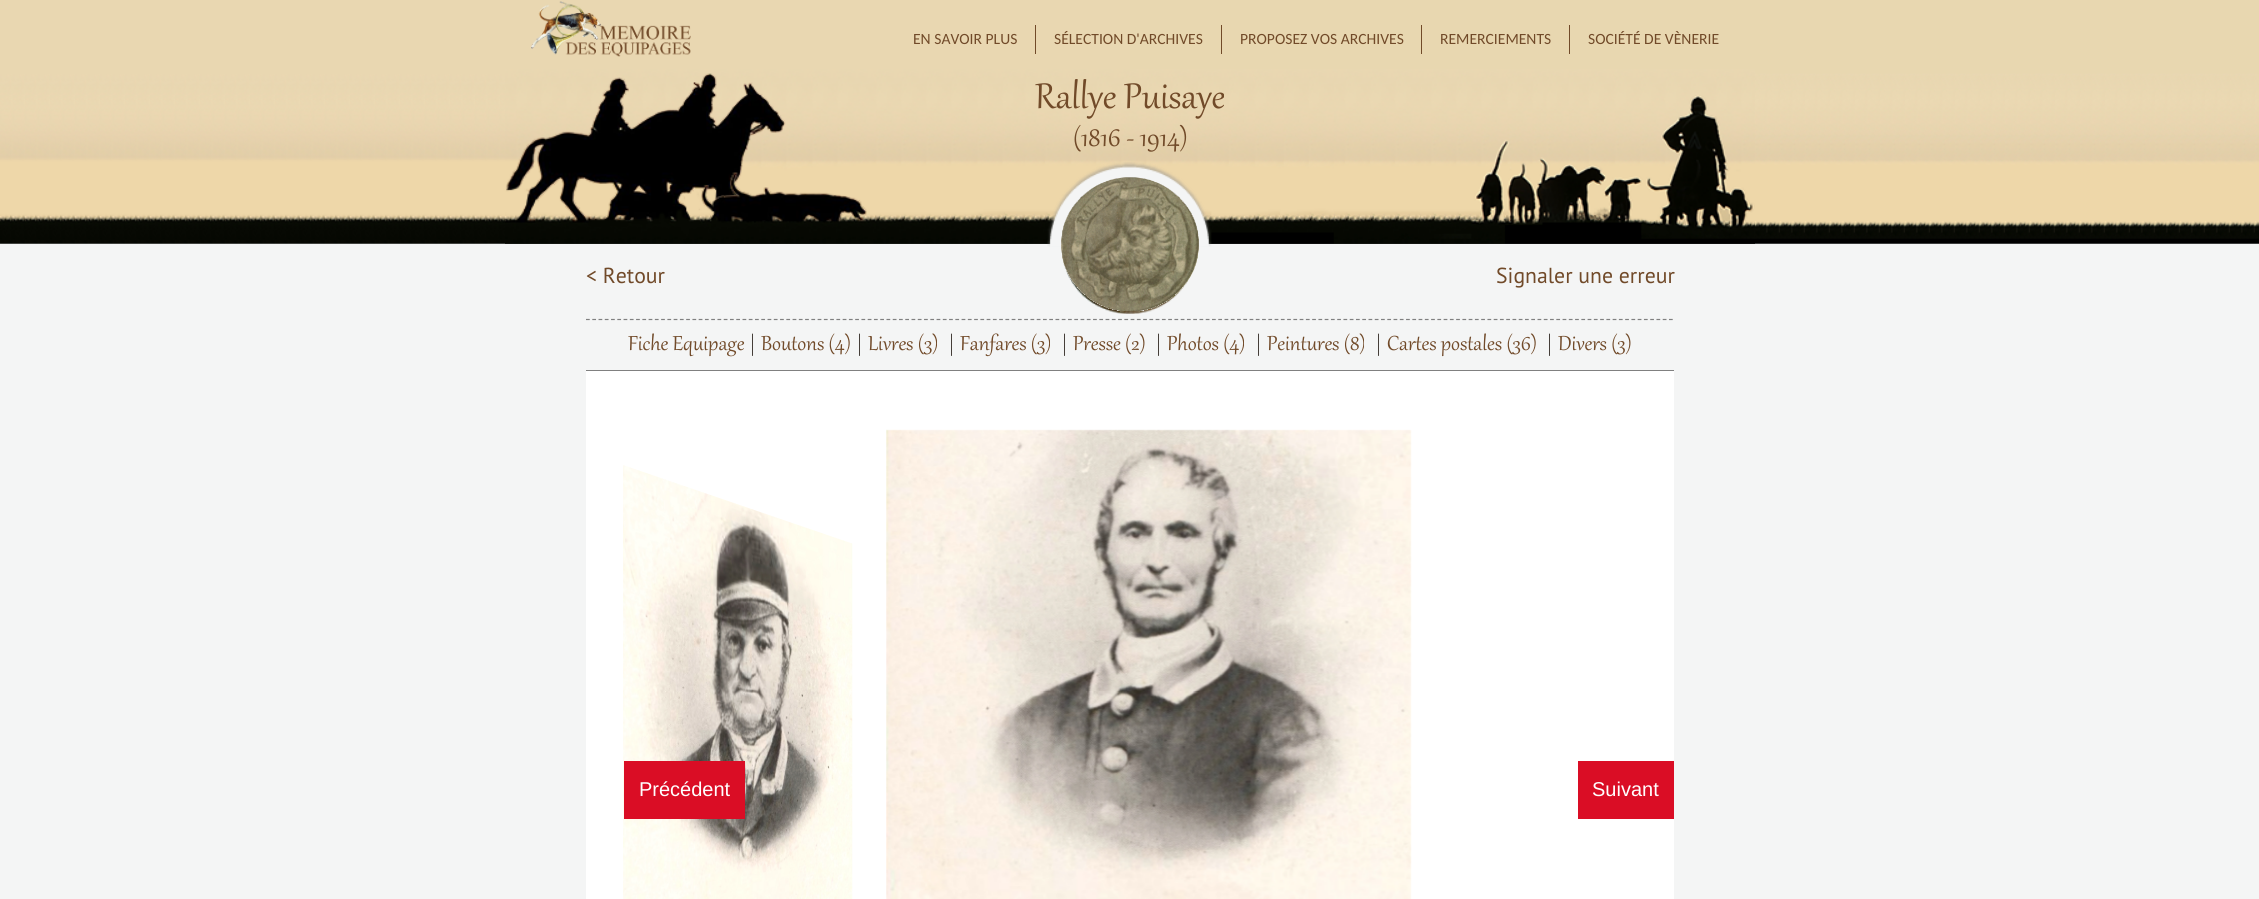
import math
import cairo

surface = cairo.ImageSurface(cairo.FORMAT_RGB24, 2259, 899)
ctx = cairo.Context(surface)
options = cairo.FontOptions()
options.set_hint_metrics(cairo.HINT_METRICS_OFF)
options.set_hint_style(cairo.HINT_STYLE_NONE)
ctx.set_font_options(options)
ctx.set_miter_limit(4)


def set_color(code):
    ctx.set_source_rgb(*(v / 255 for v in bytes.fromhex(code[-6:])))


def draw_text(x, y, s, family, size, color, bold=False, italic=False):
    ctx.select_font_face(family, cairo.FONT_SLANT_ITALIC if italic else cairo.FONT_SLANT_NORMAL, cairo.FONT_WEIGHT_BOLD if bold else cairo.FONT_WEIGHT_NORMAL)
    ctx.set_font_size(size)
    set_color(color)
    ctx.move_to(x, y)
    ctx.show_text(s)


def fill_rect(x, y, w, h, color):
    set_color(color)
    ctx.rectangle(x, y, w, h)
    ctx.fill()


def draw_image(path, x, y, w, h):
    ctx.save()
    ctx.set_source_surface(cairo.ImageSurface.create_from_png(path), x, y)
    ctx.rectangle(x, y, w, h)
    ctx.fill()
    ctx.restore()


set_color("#f4f5f5")
ctx.paint()
draw_image("assets/img1.png", 0, 0, 1130, 244)
draw_image("assets/img2.png", 1130, 0, 1129, 244)
draw_image("assets/img3.png", 531, 1, 160, 56)
draw_text(913, 44, "EN SAVOIR PLUS", "Carlito", 15.6, "#714a29")
fill_rect(1035, 25, 1, 29, "#714a29")
draw_text(1054, 44, "SÉLECTION D'ARCHIVES", "Carlito", 15.6, "#714a29")
fill_rect(1221, 25, 1, 29, "#714a29")
draw_text(1240, 44, "PROPOSEZ VOS ARCHIVES", "Carlito", 15.6, "#714a29")
fill_rect(1421, 25, 1, 29, "#714a29")
draw_text(1440, 44, "REMERCIEMENTS", "Carlito", 15.6, "#714a29")
fill_rect(1569, 25, 1, 29, "#714a29")
draw_text(1588, 44, "SOCIÉTÉ DE VÈNERIE", "Carlito", 15.6, "#714a29")
draw_image("assets/img4.png", 505, 69, 1250, 175)
draw_text(1035, 108, "Rallye Puisaye", "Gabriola", 43.75, "#714a29")
draw_text(1073, 146, "(1816 - 1914)", "Gabriola", 32, "#714a29")
draw_image("assets/img5.png", 1047, 162, 165, 85)
draw_image("assets/img6.png", 1061, 177, 138, 137)
draw_image("assets/img7.png", 1061, 177, 137, 137)
draw_image("assets/img8.png", 1061, 177, 138, 125)
draw_text(586, 283, "< Retour", "PT Sans", 21.75, "#714a29")
draw_image("assets/img9.png", 1061, 177, 138, 135)
draw_text(1496, 283, "Signaler une erreur", "PT Sans", 21.75, "#714a29")
ctx.new_path()
ctx.move_to(586, 319.5)
ctx.line_to(1674, 319.5)
set_color("#808080")
ctx.set_line_width(1.2)
ctx.set_dash([3.75, 2.51])
ctx.stroke()
fill_rect(586, 370, 1088, 1, "#808080")
draw_text(628, 350, "Fiche Equipage", "Gabriola", 25, "#714a29")
draw_text(749, 350, "|", "Gabriola", 25, "#37302a")
draw_text(761, 350, "Boutons (4)", "Gabriola", 25, "#714a29")
draw_text(856, 350, "|", "Gabriola", 25, "#37302a")
draw_text(868, 350, "Livres (3)", "Gabriola", 25, "#714a29")
draw_text(948, 350, "|", "Gabriola", 25, "#37302a")
draw_text(960, 350, "Fanfares (3)", "Gabriola", 25, "#714a29")
draw_text(1061, 350, "|", "Gabriola", 25, "#37302a")
draw_text(1073, 350, "Presse (2)", "Gabriola", 25, "#714a29")
draw_text(1155, 350, "|", "Gabriola", 25, "#37302a")
draw_text(1167, 350, "Photos (4)", "Gabriola", 25, "#714a29")
draw_text(1255, 350, "|", "Gabriola", 25, "#37302a")
draw_text(1267, 350, "Peintures (8)", "Gabriola", 25, "#714a29")
draw_text(1375, 350, "|", "Gabriola", 25, "#37302a")
draw_text(1387, 350, "Cartes postales (36)", "Gabriola", 25, "#714a29")
draw_text(1546, 350, "|", "Gabriola", 25, "#37302a")
draw_text(1558, 350, "Divers (3)", "Gabriola", 25, "#714a29")
fill_rect(586, 371, 1088, 528, "#ffffff")
draw_image("assets/img10.png", 623, 465, 230, 434)
draw_image("assets/img11.png", 886, 429, 526, 470)
fill_rect(624, 761, 121, 58, "#da0d25")
draw_text(639, 796, "Précédent", "Liberation Sans", 20, "#ffffff")
fill_rect(1578, 761, 96, 58, "#da0d25")
draw_text(1592, 796, "Suivant", "Liberation Sans", 20, "#ffffff")
surface.write_to_png("output.png")
